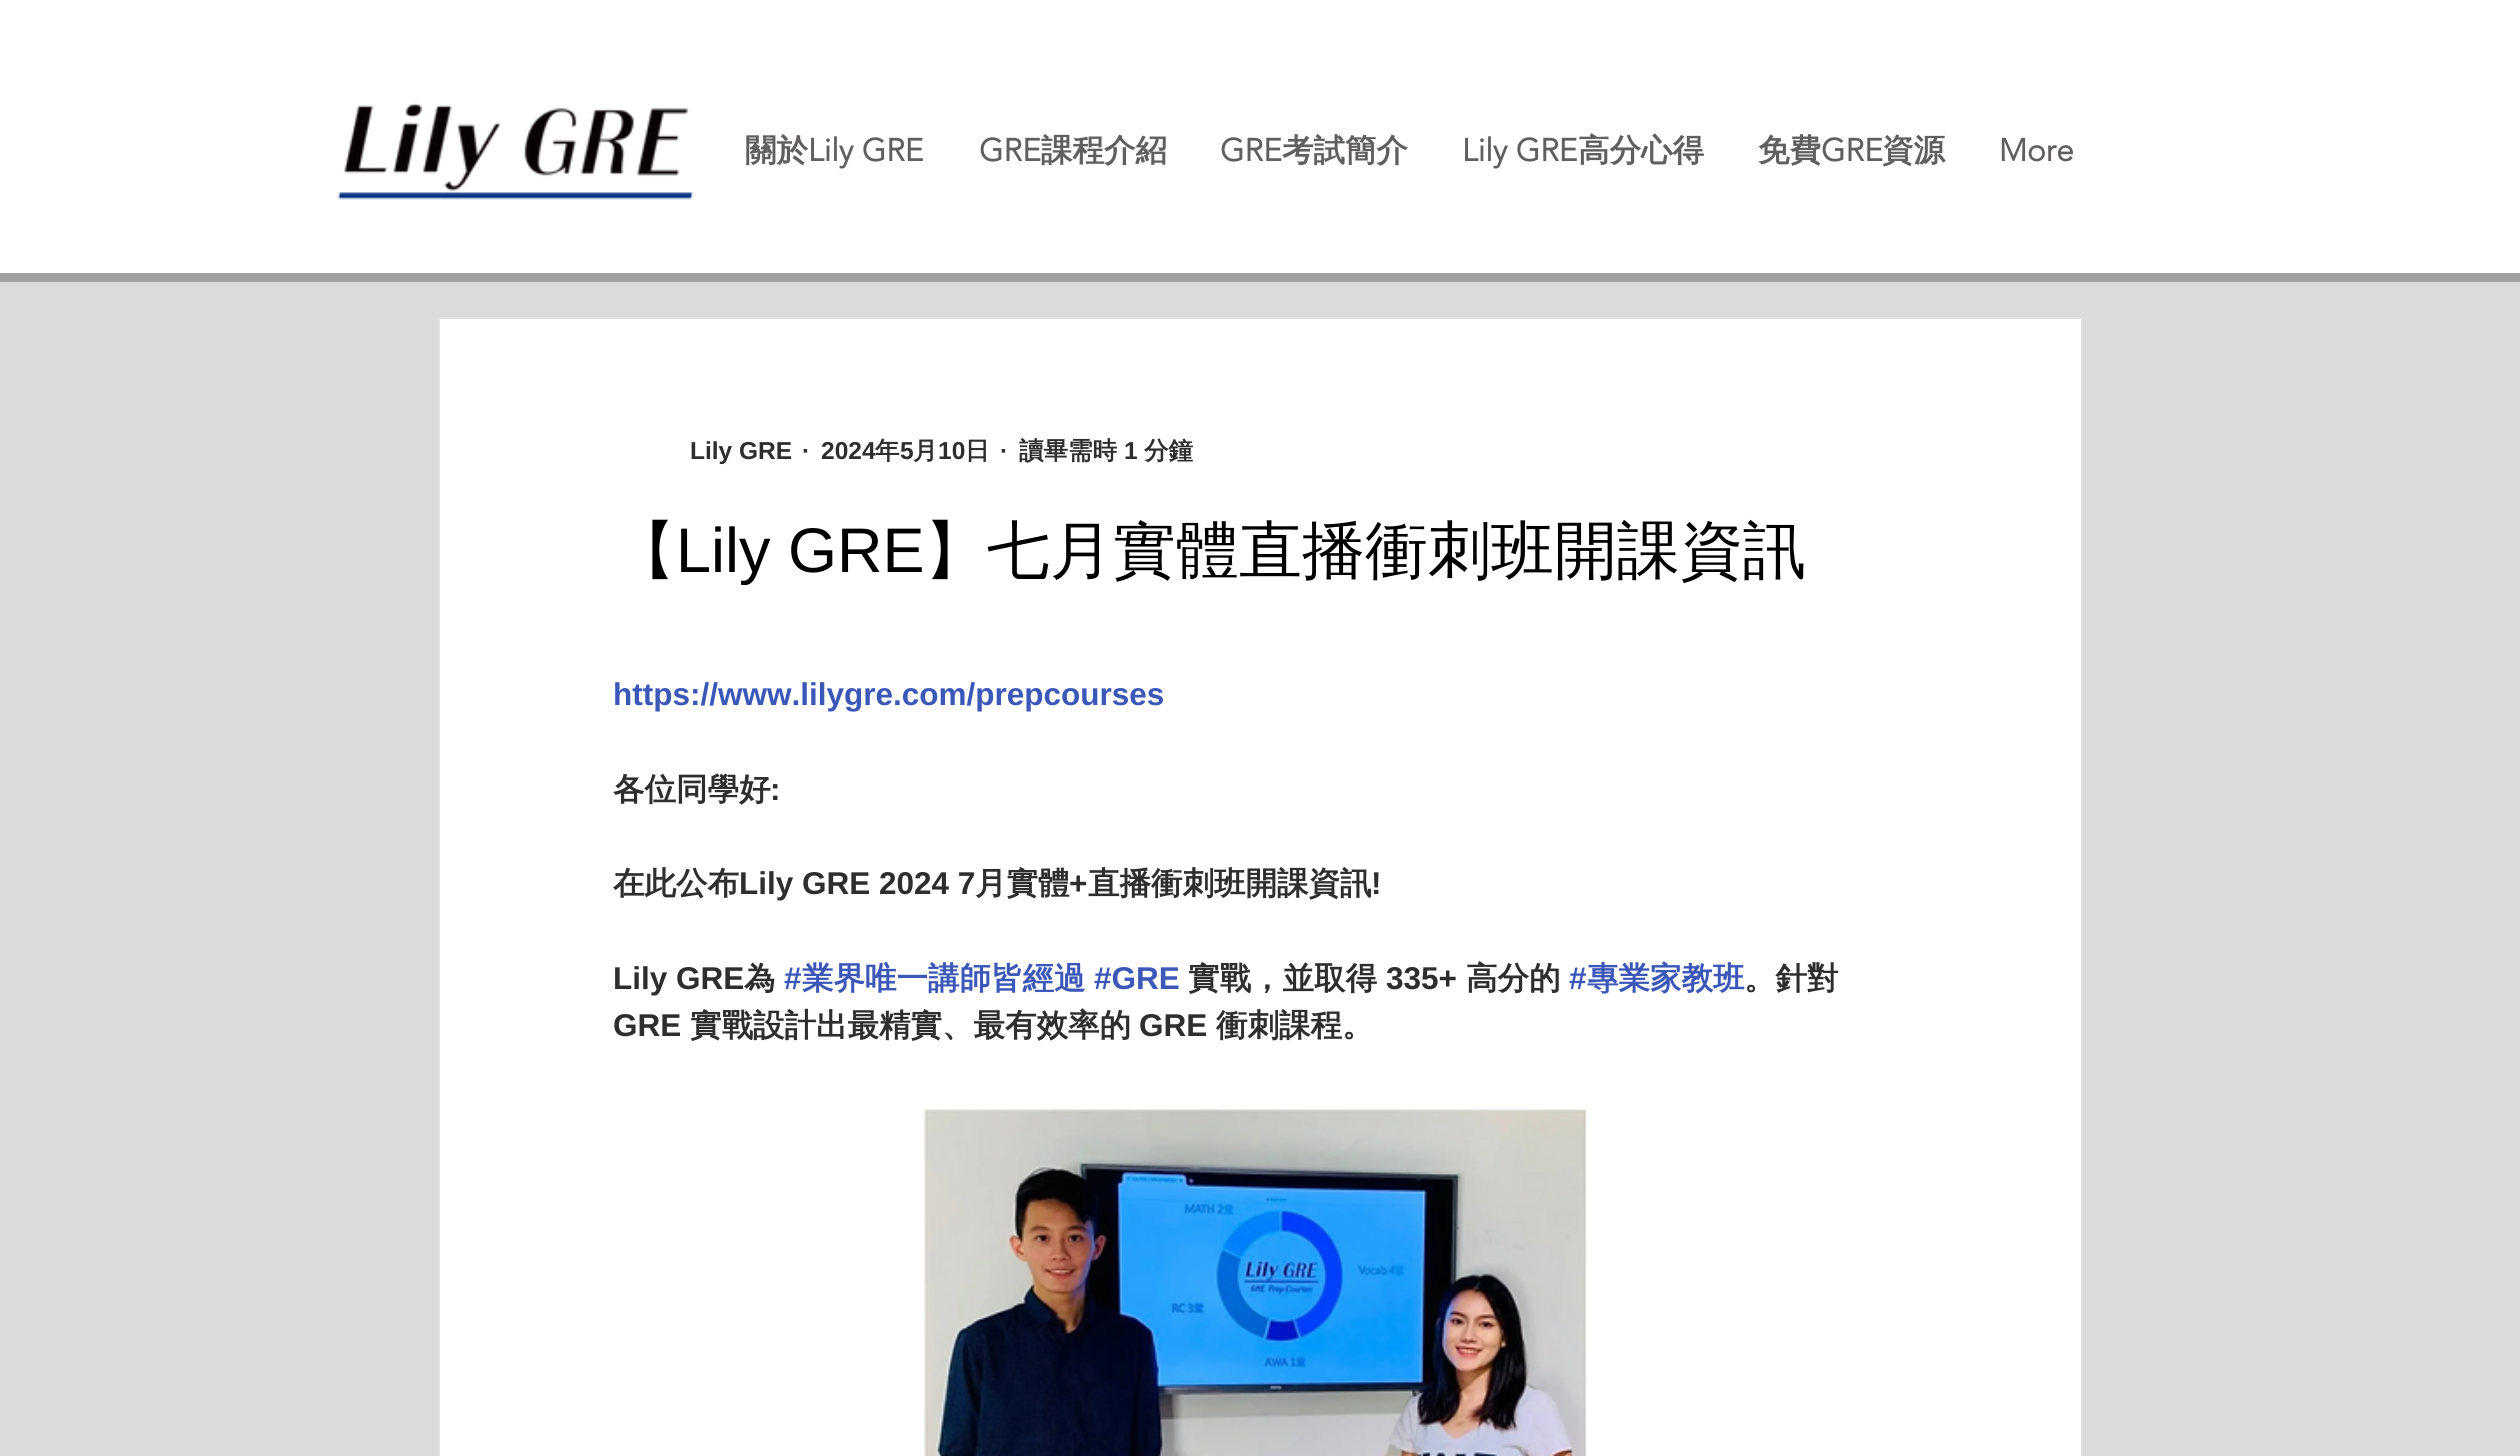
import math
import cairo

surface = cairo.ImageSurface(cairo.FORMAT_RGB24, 2520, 1456)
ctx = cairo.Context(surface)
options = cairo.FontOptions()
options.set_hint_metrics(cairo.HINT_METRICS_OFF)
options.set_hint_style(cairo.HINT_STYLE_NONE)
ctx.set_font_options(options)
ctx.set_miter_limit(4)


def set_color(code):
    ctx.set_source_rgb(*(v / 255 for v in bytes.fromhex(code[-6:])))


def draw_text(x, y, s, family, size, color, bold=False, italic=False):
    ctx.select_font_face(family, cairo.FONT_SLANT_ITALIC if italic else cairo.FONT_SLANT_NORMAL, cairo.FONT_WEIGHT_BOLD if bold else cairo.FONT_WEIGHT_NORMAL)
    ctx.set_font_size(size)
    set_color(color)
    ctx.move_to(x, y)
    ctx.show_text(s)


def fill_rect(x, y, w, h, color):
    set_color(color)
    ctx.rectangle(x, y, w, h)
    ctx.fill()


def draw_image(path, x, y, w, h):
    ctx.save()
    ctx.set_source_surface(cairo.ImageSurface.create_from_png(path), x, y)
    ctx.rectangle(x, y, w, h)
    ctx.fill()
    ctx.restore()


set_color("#dbdbdb")
ctx.paint()
fill_rect(0, 0, 2520, 273, "#ffffff")
fill_rect(0, 273, 2520, 9, "#a0a09f")
draw_image("assets/img1.png", 337, 103, 357, 97)
draw_text(745, 161, "關於", "WenQuanYi Zen Hei", 31.5, "#605e5e", bold=True)
draw_text(808, 161, "Lily GRE", "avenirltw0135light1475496", 31.5, "#605e5e", bold=True)
draw_text(979, 161, "GRE", "avenirltw0135light1475496", 31.5, "#605e5e", bold=True)
draw_text(1041, 161, "課程介紹", "WenQuanYi Zen Hei", 31.5, "#605e5e", bold=True)
draw_text(1220, 161, "GRE", "avenirltw0135light1475496", 31.5, "#605e5e", bold=True)
draw_text(1282, 161, "考試簡介", "WenQuanYi Zen Hei", 31.5, "#605e5e", bold=True)
draw_text(1462, 161, "Lily GRE", "avenirltw0135light1475496", 31.5, "#605e5e", bold=True)
draw_text(1578, 161, "高分心得", "WenQuanYi Zen Hei", 31.5, "#605e5e", bold=True)
draw_text(1758, 161, "免費", "WenQuanYi Zen Hei", 31.5, "#605e5e", bold=True)
draw_text(1821, 161, "GRE", "avenirltw0135light1475496", 31.5, "#605e5e", bold=True)
draw_text(1882, 161, "資源", "WenQuanYi Zen Hei", 31.5, "#605e5e", bold=True)
draw_text(1999, 161, "More", "avenirltw0135light1475496", 31.5, "#605e5e", bold=True)
set_color("#ffffff")
ctx.rectangle(439, 318, 1643, 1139)
ctx.fill_preserve()
set_color("#e1e1e1")
ctx.stroke()
draw_text(690, 459, "Lily GRE", "Liberation Sans", 24.5, "#2f2e2e", bold=True)
draw_text(802, 459, "·", "Liberation Sans", 24.5, "#2f2e2e", bold=True)
draw_text(821, 459, "2024", "Liberation Sans", 24.5, "#2f2e2e", bold=True)
draw_text(875, 459, "年", "WenQuanYi Zen Hei", 24.5, "#2f2e2e", bold=True)
draw_text(900, 459, "5", "Liberation Sans", 24.5, "#2f2e2e", bold=True)
draw_text(913, 459, "月", "WenQuanYi Zen Hei", 24.5, "#2f2e2e", bold=True)
draw_text(938, 459, "10", "Liberation Sans", 24.5, "#2f2e2e", bold=True)
draw_text(965, 459, "日", "WenQuanYi Zen Hei", 24.5, "#2f2e2e", bold=True)
draw_text(1000, 459, "·", "Liberation Sans", 24.5, "#2f2e2e", bold=True)
draw_text(1019, 459, "讀畢需時", "WenQuanYi Zen Hei", 24.5, "#2f2e2e", bold=True)
draw_text(1124, 459, "1", "Liberation Sans", 24.5, "#2f2e2e", bold=True)
draw_text(1144, 459, "分鐘", "WenQuanYi Zen Hei", 24.5, "#2f2e2e", bold=True)
draw_text(613, 572, "【", "WenQuanYi Zen Hei Medium", 63, "#000000")
draw_text(676, 572, "Lily GRE", "Liberation Sans", 63, "#000000")
draw_text(924, 572, "】七月實體直播衝刺班開課資訊", "WenQuanYi Zen Hei Medium", 63, "#000000")
draw_text(613, 705, "https://www.lilygre.com/prepcourses", "Liberation Sans", 31.5, "#3b58b8", bold=True)
draw_text(613, 800, "各位同學好", "WenQuanYi Zen Hei", 31.5, "#2f2e2e", bold=True)
draw_text(770, 800, ":", "Liberation Sans", 31.5, "#2f2e2e", bold=True)
draw_text(613, 894, "在此公布", "WenQuanYi Zen Hei", 31.5, "#2f2e2e", bold=True)
draw_text(739, 894, "Lily GRE 2024 7", "Liberation Sans", 31.5, "#2f2e2e", bold=True)
draw_text(975, 894, "月實體", "WenQuanYi Zen Hei", 31.5, "#2f2e2e", bold=True)
draw_text(1069, 894, "+", "Liberation Sans", 31.5, "#2f2e2e", bold=True)
draw_text(1088, 894, "直播衝刺班開課資訊", "WenQuanYi Zen Hei", 31.5, "#2f2e2e", bold=True)
draw_text(1371, 894, "!", "Liberation Sans", 31.5, "#2f2e2e", bold=True)
draw_text(613, 989, "Lily GRE", "Liberation Sans", 31.5, "#2f2e2e", bold=True)
draw_text(744, 989, "為", "WenQuanYi Zen Hei", 31.5, "#2f2e2e", bold=True)
draw_text(784, 989, "#", "Liberation Sans", 31.5, "#3b58b8", bold=True)
draw_text(802, 989, "業界唯一講師皆經過", "WenQuanYi Zen Hei", 31.5, "#3b58b8", bold=True)
draw_text(1094, 989, "#GRE", "Liberation Sans", 31.5, "#3b58b8", bold=True)
draw_text(1188, 989, "實戰，並取得", "WenQuanYi Zen Hei", 31.5, "#2f2e2e", bold=True)
draw_text(1386, 989, "335+", "Liberation Sans", 31.5, "#2f2e2e", bold=True)
draw_text(1466, 989, "高分的", "WenQuanYi Zen Hei", 31.5, "#2f2e2e", bold=True)
draw_text(1569, 989, "#", "Liberation Sans", 31.5, "#3b58b8", bold=True)
draw_text(1587, 989, "專業家教班", "WenQuanYi Zen Hei", 31.5, "#3b58b8", bold=True)
draw_text(1744, 989, "。針對", "WenQuanYi Zen Hei", 31.5, "#2f2e2e", bold=True)
draw_text(613, 1036, "GRE", "Liberation Sans", 31.5, "#2f2e2e", bold=True)
draw_text(690, 1036, "實戰設計出最精實、最有效率的", "WenQuanYi Zen Hei", 31.5, "#2f2e2e", bold=True)
draw_text(1139, 1036, "GRE", "Liberation Sans", 31.5, "#2f2e2e", bold=True)
draw_text(1216, 1036, "衝刺課程。", "WenQuanYi Zen Hei", 31.5, "#2f2e2e", bold=True)
draw_image("assets/img2.png", 923, 1109, 664, 347)
surface.write_to_png("output.png")
